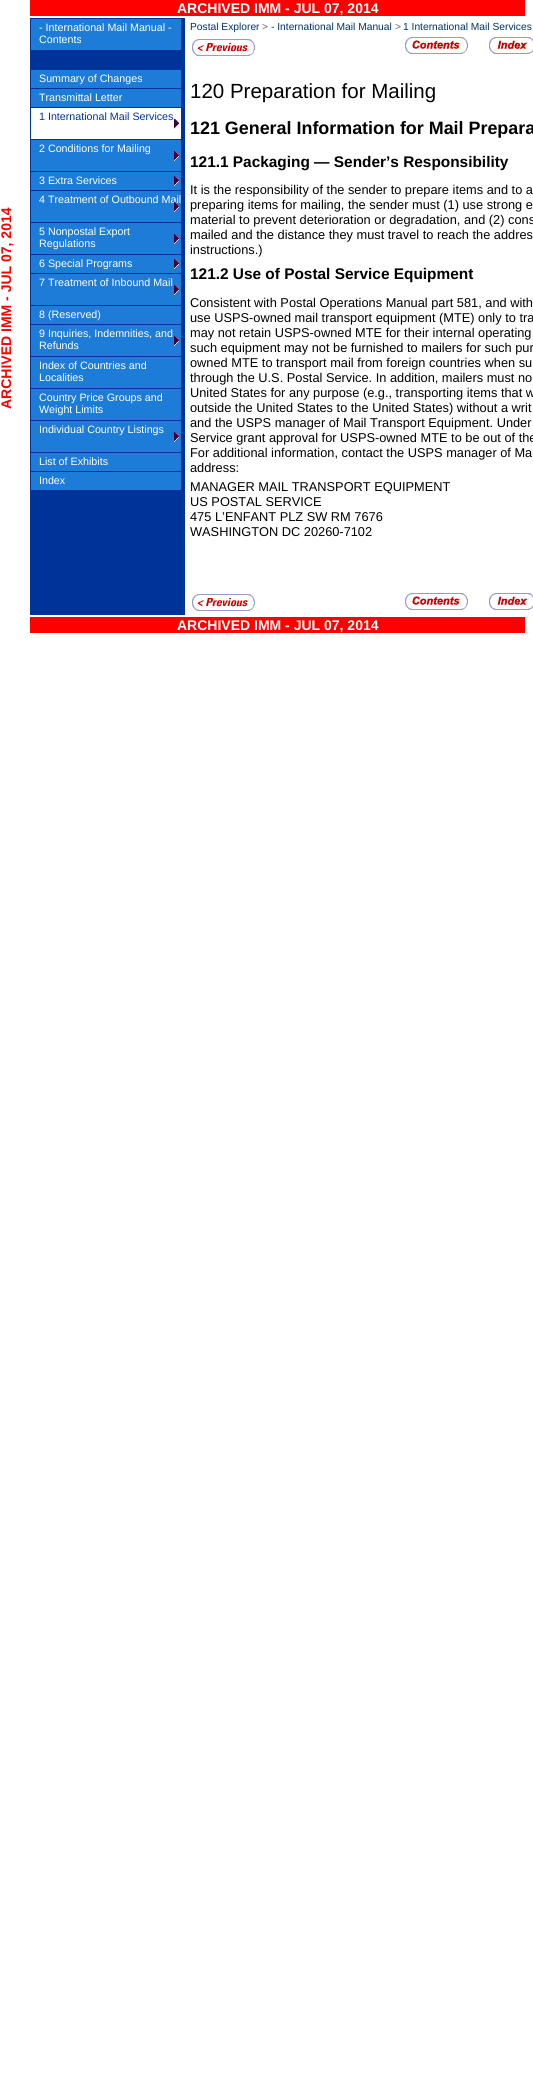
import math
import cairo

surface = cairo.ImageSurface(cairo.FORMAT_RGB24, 533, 2077)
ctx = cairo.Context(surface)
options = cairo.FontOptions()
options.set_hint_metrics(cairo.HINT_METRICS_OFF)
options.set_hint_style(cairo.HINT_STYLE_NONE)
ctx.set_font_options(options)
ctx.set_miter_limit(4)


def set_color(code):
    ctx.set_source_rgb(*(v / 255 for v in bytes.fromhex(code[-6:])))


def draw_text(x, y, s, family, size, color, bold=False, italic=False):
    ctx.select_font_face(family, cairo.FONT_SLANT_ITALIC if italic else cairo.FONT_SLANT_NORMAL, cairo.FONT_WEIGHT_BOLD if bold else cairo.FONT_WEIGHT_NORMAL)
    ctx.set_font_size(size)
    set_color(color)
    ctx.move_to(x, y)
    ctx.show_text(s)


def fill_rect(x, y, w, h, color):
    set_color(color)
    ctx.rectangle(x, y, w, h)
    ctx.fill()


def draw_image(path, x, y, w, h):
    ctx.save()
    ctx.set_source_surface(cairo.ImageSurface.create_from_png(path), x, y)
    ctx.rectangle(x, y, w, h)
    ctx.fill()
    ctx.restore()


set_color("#ffffff")
ctx.paint()
ctx.save()
ctx.translate(11, 409)
ctx.rotate(-90 * math.pi / 180)
draw_text(0, 0, "ARCHIVED IMM - JUL 07, 2014", "Liberation Sans", 14, "#ff0000", bold=True)
ctx.restore()
fill_rect(30, 18, 155, 597, "#003399")
fill_rect(31, 19, 150, 31, "#1c7cd8")
draw_text(39, 31, "- International Mail Manual -", "Liberation Sans", 10.7, "#ffffff")
draw_text(39, 43, "Contents", "Liberation Sans", 10.7, "#ffffff")
fill_rect(31, 70, 150, 18, "#1c7cd8")
draw_text(39, 82, "Summary of Changes", "Liberation Sans", 10.7, "#ffffff")
fill_rect(31, 89, 150, 18, "#1c7cd8")
draw_text(39, 101, "Transmittal Letter", "Liberation Sans", 10.7, "#ffffff")
fill_rect(31, 108, 150, 31, "#ffffff")
draw_text(39, 120, "1 International Mail Services", "Liberation Sans", 10.7, "#003399")
draw_image("assets/img1.png", 174, 119, 5, 10)
fill_rect(31, 140, 150, 31, "#1c7cd8")
draw_text(39, 152, "2 Conditions for Mailing", "Liberation Sans", 10.7, "#ffffff")
draw_image("assets/img2.png", 174, 151, 5, 10)
fill_rect(31, 172, 150, 18, "#1c7cd8")
draw_text(39, 184, "3 Extra Services", "Liberation Sans", 10.7, "#ffffff")
draw_image("assets/img2.png", 174, 176, 5, 10)
fill_rect(31, 191, 150, 31, "#1c7cd8")
draw_text(39, 203, "4 Treatment of Outbound Mail", "Liberation Sans", 10.7, "#ffffff")
draw_image("assets/img3.png", 174, 202, 5, 10)
fill_rect(31, 223, 150, 31, "#1c7cd8")
draw_text(39, 235, "5 Nonpostal Export", "Liberation Sans", 10.7, "#ffffff")
draw_text(39, 247, "Regulations", "Liberation Sans", 10.7, "#ffffff")
draw_image("assets/img2.png", 174, 234, 5, 10)
fill_rect(31, 255, 150, 18, "#1c7cd8")
draw_text(39, 267, "6 Special Programs", "Liberation Sans", 10.7, "#ffffff")
draw_image("assets/img2.png", 174, 259, 5, 10)
fill_rect(31, 274, 150, 31, "#1c7cd8")
draw_text(39, 286, "7 Treatment of Inbound Mail", "Liberation Sans", 10.7, "#ffffff")
draw_image("assets/img2.png", 174, 285, 5, 10)
fill_rect(31, 306, 150, 18, "#1c7cd8")
draw_text(39, 318, "8 (Reserved)", "Liberation Sans", 10.7, "#ffffff")
fill_rect(31, 325, 150, 31, "#1c7cd8")
draw_text(39, 337, "9 Inquiries, Indemnities, and", "Liberation Sans", 10.7, "#ffffff")
draw_text(39, 349, "Refunds", "Liberation Sans", 10.7, "#ffffff")
draw_image("assets/img2.png", 174, 336, 5, 10)
fill_rect(31, 357, 150, 31, "#1c7cd8")
draw_text(39, 369, "Index of Countries and", "Liberation Sans", 10.7, "#ffffff")
draw_text(39, 381, "Localities", "Liberation Sans", 10.7, "#ffffff")
fill_rect(31, 389, 150, 31, "#1c7cd8")
draw_text(39, 401, "Country Price Groups and", "Liberation Sans", 10.7, "#ffffff")
draw_text(39, 413, "Weight Limits", "Liberation Sans", 10.7, "#ffffff")
fill_rect(31, 421, 150, 31, "#1c7cd8")
draw_text(39, 433, "Individual Country Listings", "Liberation Sans", 10.7, "#ffffff")
draw_image("assets/img2.png", 174, 432, 5, 10)
fill_rect(31, 453, 150, 18, "#1c7cd8")
draw_text(39, 465, "List of Exhibits", "Liberation Sans", 10.7, "#ffffff")
fill_rect(31, 472, 150, 18, "#1c7cd8")
draw_text(39, 484, "Index", "Liberation Sans", 10.7, "#ffffff")
fill_rect(30, 0, 495, 16, "#ff0000")
draw_text(177, 13, "ARCHIVED IMM - JUL 07, 2014", "Liberation Sans", 14, "#ffffff", bold=True)
draw_text(190, 30, "Postal Explorer", "Liberation Sans", 10.25, "#003366")
draw_text(262, 30, ">", "Liberation Sans", 10.25, "#666666")
draw_text(271, 30, "- International Mail Manual", "Liberation Sans", 10.25, "#003366")
draw_text(395, 30, ">", "Liberation Sans", 10.25, "#666666")
draw_text(403, 30, "1 International Mail Services", "Liberation Sans", 10.25, "#003366")
draw_image("assets/img4.png", 192, 39, 63, 17)
draw_image("assets/img5.png", 405, 37, 63, 17)
draw_image("assets/img6.png", 489, 37, 44, 17)
draw_text(190, 98, "120 Preparation for Mailing", "Liberation Sans", 20.5, "#000000")
draw_text(190, 134, "121 General Information for Mail Prepara", "Liberation Sans", 17.9, "#000000", bold=True)
draw_text(190, 167, "121.1 Packaging — Sender’s Responsibility", "Liberation Sans", 15.4, "#000000", bold=True)
draw_text(190, 194, "It is the responsibility of the sender to prepare items and to a", "Liberation Sans", 12.8, "#000000")
draw_text(190, 209, "preparing items for mailing, the sender must (1) use strong e", "Liberation Sans", 12.8, "#000000")
draw_text(190, 224, "material to prevent deterioration or degradation, and (2) cons", "Liberation Sans", 12.8, "#000000")
draw_text(190, 239, "mailed and the distance they must travel to reach the addres", "Liberation Sans", 12.8, "#000000")
draw_text(190, 254, "instructions.)", "Liberation Sans", 12.8, "#000000")
draw_text(190, 279, "121.2 Use of Postal Service Equipment", "Liberation Sans", 15.4, "#000000", bold=True)
draw_text(190, 307, "Consistent with Postal Operations Manual part 581, and with", "Liberation Sans", 12.8, "#000000")
draw_text(190, 322, "use USPS-owned mail transport equipment (MTE) only to tra", "Liberation Sans", 12.8, "#000000")
draw_text(190, 337, "may not retain USPS-owned MTE for their internal operating", "Liberation Sans", 12.8, "#000000")
draw_text(190, 352, "such equipment may not be furnished to mailers for such pur", "Liberation Sans", 12.8, "#000000")
draw_text(190, 367, "owned MTE to transport mail from foreign countries when su", "Liberation Sans", 12.8, "#000000")
draw_text(190, 382, "through the U.S. Postal Service. In addition, mailers must no", "Liberation Sans", 12.8, "#000000")
draw_text(190, 397, "United States for any purpose (e.g., transporting items that w", "Liberation Sans", 12.8, "#000000")
draw_text(190, 412, "outside the United States to the United States) without a writ", "Liberation Sans", 12.8, "#000000")
draw_text(190, 427, "and the USPS manager of Mail Transport Equipment. Under", "Liberation Sans", 12.8, "#000000")
draw_text(190, 442, "Service grant approval for USPS-owned MTE to be out of the", "Liberation Sans", 12.8, "#000000")
draw_text(190, 457, "For additional information, contact the USPS manager of Ma", "Liberation Sans", 12.8, "#000000")
draw_text(190, 472, "address:", "Liberation Sans", 12.8, "#000000")
draw_text(190, 491, "MANAGER MAIL TRANSPORT EQUIPMENT", "Liberation Sans", 12.8, "#000000")
draw_text(190, 506, "US POSTAL SERVICE", "Liberation Sans", 12.8, "#000000")
draw_text(190, 521, "475 L’ENFANT PLZ SW RM 7676", "Liberation Sans", 12.8, "#000000")
draw_text(190, 536, "WASHINGTON DC 20260-7102", "Liberation Sans", 12.8, "#000000")
draw_image("assets/img4.png", 192, 594, 63, 17)
draw_image("assets/img5.png", 405, 593, 63, 17)
draw_image("assets/img6.png", 489, 593, 44, 17)
fill_rect(30, 617, 495, 16, "#ff0000")
draw_text(177, 630, "ARCHIVED IMM - JUL 07, 2014", "Liberation Sans", 14, "#ffffff", bold=True)
surface.write_to_png("output.png")
